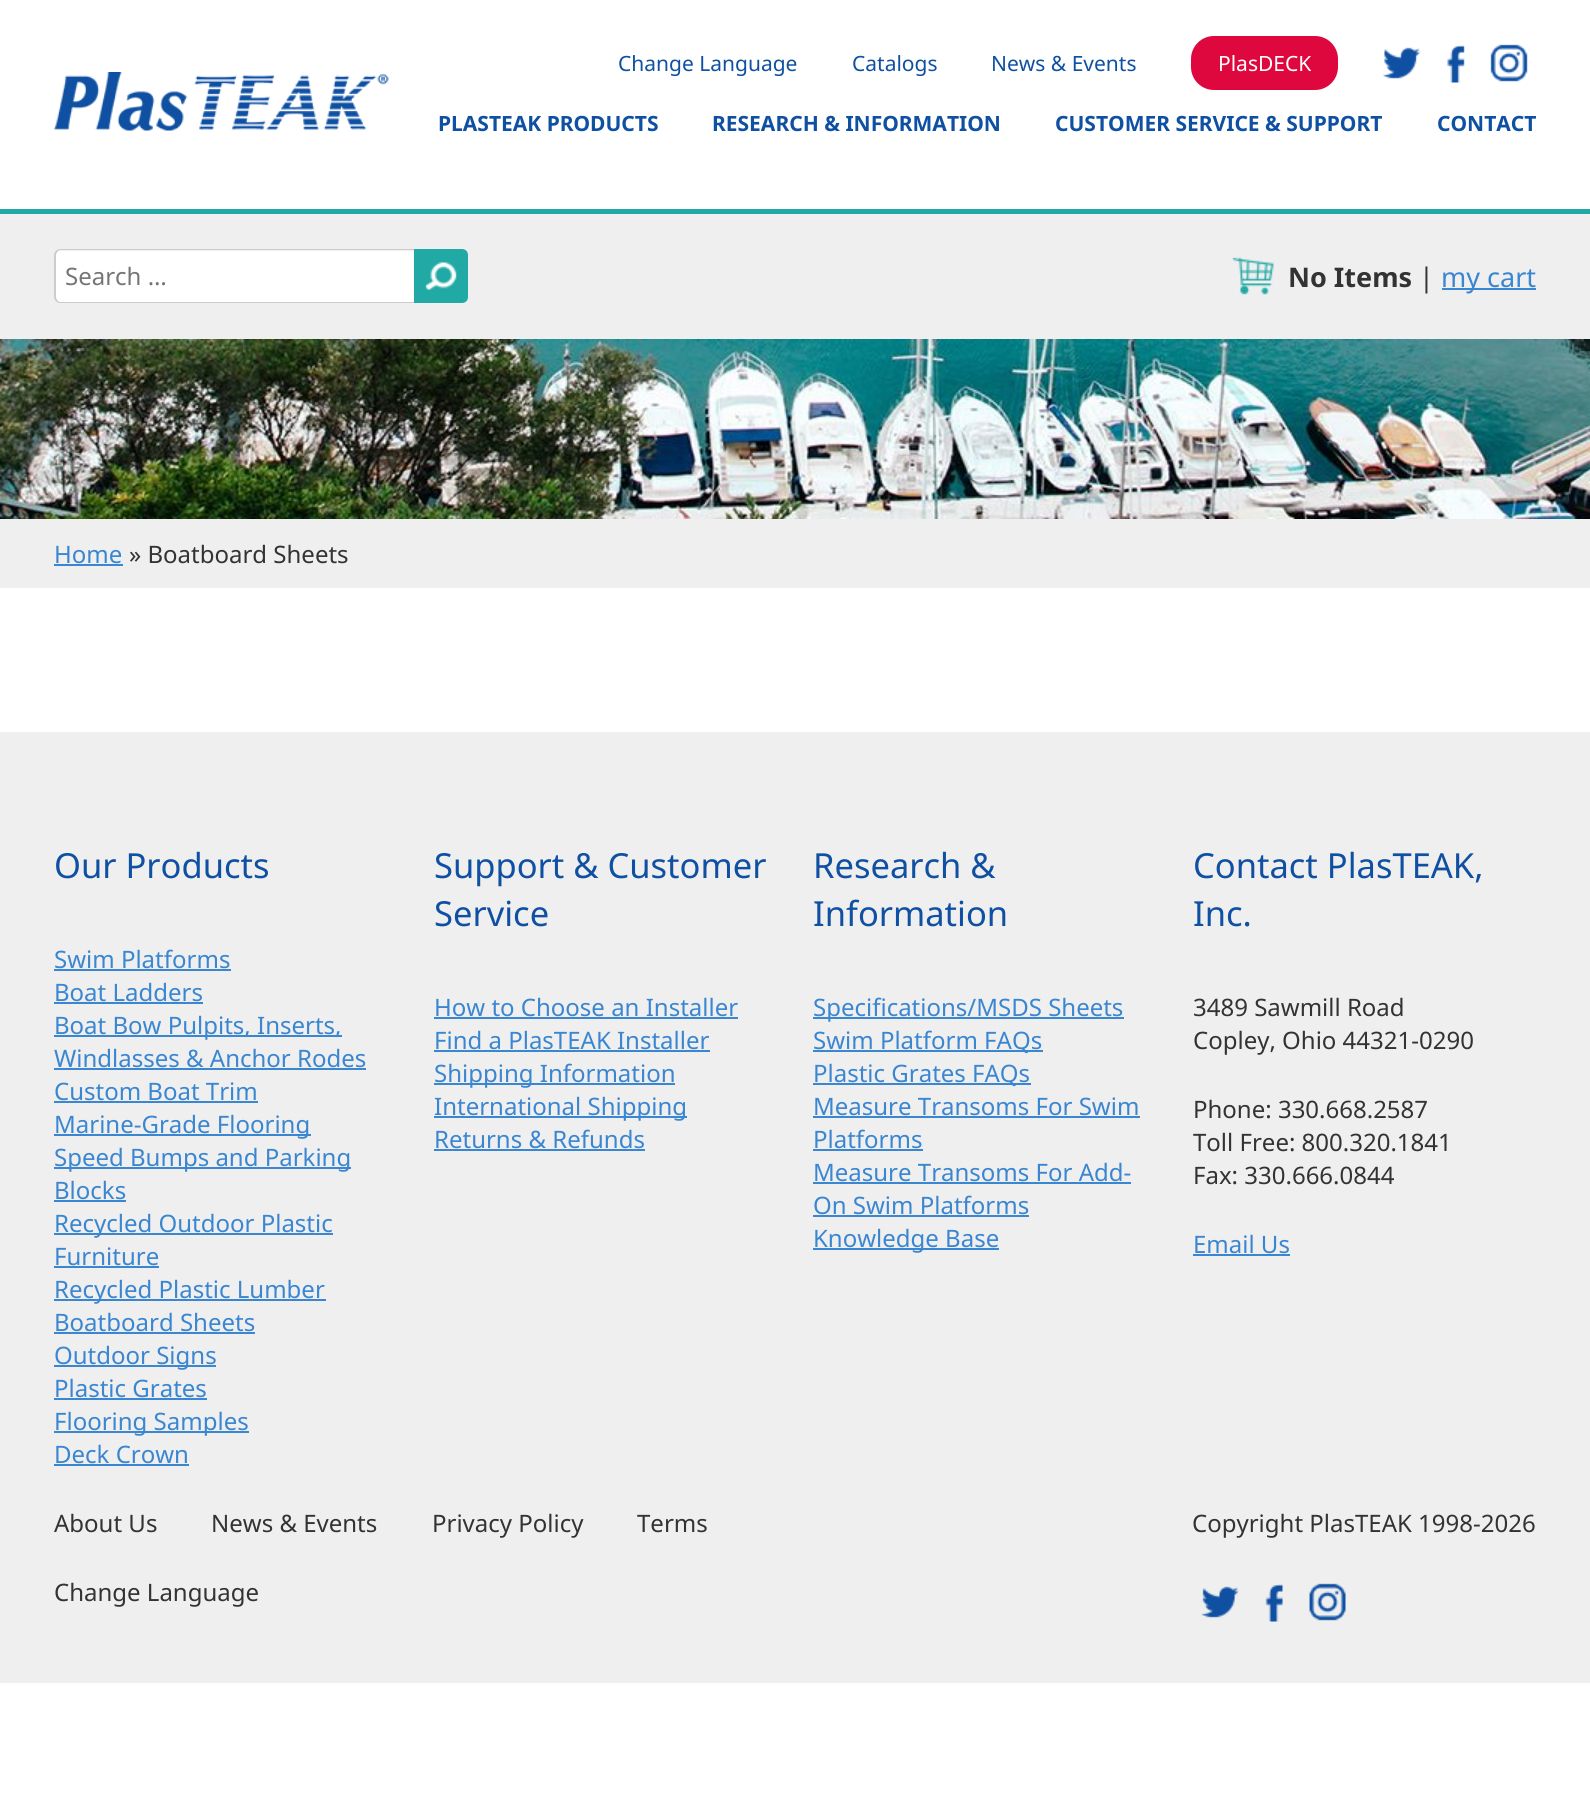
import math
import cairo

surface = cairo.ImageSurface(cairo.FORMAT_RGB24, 1590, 1793)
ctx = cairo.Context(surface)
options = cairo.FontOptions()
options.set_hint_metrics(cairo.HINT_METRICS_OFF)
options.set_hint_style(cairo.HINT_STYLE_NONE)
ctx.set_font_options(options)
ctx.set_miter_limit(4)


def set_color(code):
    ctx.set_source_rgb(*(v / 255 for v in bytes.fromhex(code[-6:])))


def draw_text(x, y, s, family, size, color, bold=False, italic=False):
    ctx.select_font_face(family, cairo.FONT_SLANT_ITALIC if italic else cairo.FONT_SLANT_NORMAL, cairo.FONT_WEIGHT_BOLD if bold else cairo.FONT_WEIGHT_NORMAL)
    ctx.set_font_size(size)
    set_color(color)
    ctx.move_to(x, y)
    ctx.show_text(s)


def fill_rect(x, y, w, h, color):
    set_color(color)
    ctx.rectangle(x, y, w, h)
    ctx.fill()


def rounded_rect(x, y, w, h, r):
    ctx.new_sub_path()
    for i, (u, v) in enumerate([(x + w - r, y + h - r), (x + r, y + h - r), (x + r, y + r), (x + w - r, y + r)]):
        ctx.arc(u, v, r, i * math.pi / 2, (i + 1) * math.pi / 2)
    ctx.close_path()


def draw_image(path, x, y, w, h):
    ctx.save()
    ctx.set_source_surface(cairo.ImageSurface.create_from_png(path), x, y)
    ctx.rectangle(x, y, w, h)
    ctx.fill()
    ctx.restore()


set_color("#ffffff")
ctx.paint()
fill_rect(0, 209, 1590, 5, "#21a9a5")
draw_image("assets/img1.png", 54, 72, 335, 59)
draw_text(618, 71, "Change Language", "Noto Sans", 21, "#0f50a3")
draw_text(852, 71, "Catalogs", "Noto Sans", 21, "#0f50a3")
draw_text(991, 71, "News & Events", "Noto Sans", 21, "#0f50a3")
set_color("#df083e")
rounded_rect(1191, 36, 147, 54, 23)
ctx.fill()
draw_text(1218, 71, "PlasDECK", "Noto Sans", 21, "#ffffff")
draw_image("assets/img2.png", 1383, 47, 38, 32)
draw_image("assets/img3.png", 1447, 45, 18, 38)
draw_image("assets/img4.png", 1490, 44, 38, 38)
draw_text(438, 131, "PLASTEAK PRODUCTS", "Noto Sans", 21, "#0f50a3", bold=True)
draw_text(712, 131, "RESEARCH & INFORMATION", "Noto Sans", 21, "#0f50a3", bold=True)
draw_text(1055, 131, "CUSTOMER SERVICE & SUPPORT", "Noto Sans", 21, "#0f50a3", bold=True)
draw_text(1437, 131, "CONTACT", "Noto Sans", 21, "#0f50a3", bold=True)
fill_rect(0, 214, 1590, 125, "#efefef")
set_color("#ffffff")
ctx.new_path()
ctx.move_to(61, 251)
ctx.line_to(414, 251)
ctx.line_to(414, 302)
ctx.line_to(61, 302)
ctx.curve_to(58, 302, 56, 300, 56, 297)
ctx.line_to(56, 256)
ctx.curve_to(56, 253, 58, 251, 61, 251)
ctx.close_path()
ctx.fill()
set_color("#cccccc")
ctx.set_fill_rule(cairo.FILL_RULE_EVEN_ODD)
ctx.new_path()
ctx.move_to(60, 249)
ctx.line_to(414, 249)
ctx.line_to(414, 303)
ctx.line_to(60, 303)
ctx.curve_to(57, 303, 54, 300, 54, 297)
ctx.line_to(54, 255)
ctx.curve_to(54, 252, 57, 249, 60, 249)
ctx.close_path()
ctx.move_to(60, 250)
ctx.line_to(414, 250)
ctx.line_to(414, 302)
ctx.line_to(60, 302)
ctx.curve_to(58, 302, 56, 299, 56, 297)
ctx.line_to(56, 255)
ctx.curve_to(56, 253, 58, 250, 60, 250)
ctx.close_path()
ctx.fill()
draw_text(65, 285, "Search …", "Noto Sans", 24, "#757575")
set_color("#21a9a5")
ctx.new_path()
ctx.move_to(414, 249)
ctx.line_to(462, 249)
ctx.curve_to(465.5, 249, 468, 251.5, 468, 255)
ctx.line_to(468, 297)
ctx.curve_to(468, 300.5, 465.5, 303, 462, 303)
ctx.line_to(414, 303)
ctx.close_path()
ctx.fill()
draw_image("assets/img5.png", 425, 262, 32, 28)
draw_image("assets/img6.png", 1232, 257, 42, 38)
draw_text(1288, 287, "No Items", "Noto Sans", 27, "#333333", bold=True)
draw_text(1419, 287, "|", "Noto Sans", 27, "#333333")
fill_rect(1442, 288, 94, 2, "#3a86d1")
draw_text(1441, 287, "my cart", "Noto Sans", 27, "#3a86d1")
draw_image("assets/img7.png", 0, 339, 1590, 180)
fill_rect(0, 519, 1590, 69, "#efefef")
draw_text(54, 563, "Home", "Noto Sans", 24, "#3a86d1")
fill_rect(54, 564, 69, 2, "#3a86d1")
draw_text(129, 563, "» Boatboard Sheets", "Noto Sans", 24, "#333333")
fill_rect(0, 732, 1590, 951, "#efefef")
draw_text(54, 878, "Our Products", "Noto Sans", 34.5, "#0f50a3")
draw_text(54, 968, "Swim Platforms", "Noto Sans", 24, "#3a86d1")
fill_rect(54, 969, 177, 2, "#3a86d1")
draw_text(54, 1001, "Boat Ladders", "Noto Sans", 24, "#3a86d1")
fill_rect(54, 1002, 149, 2, "#3a86d1")
fill_rect(54, 1035, 288, 2, "#3a86d1")
draw_text(54, 1034, "Boat Bow Pulpits, Inserts,", "Noto Sans", 24, "#3a86d1")
draw_text(54, 1067, "Windlasses & Anchor Rodes", "Noto Sans", 24, "#3a86d1")
fill_rect(54, 1068, 312, 2, "#3a86d1")
draw_text(54, 1100, "Custom Boat Trim", "Noto Sans", 24, "#3a86d1")
fill_rect(54, 1101, 204, 2, "#3a86d1")
fill_rect(54, 1134, 257, 2, "#3a86d1")
draw_text(54, 1133, "Marine-Grade Flooring", "Noto Sans", 24, "#3a86d1")
fill_rect(54, 1167, 297, 2, "#3a86d1")
draw_text(54, 1166, "Speed Bumps and Parking", "Noto Sans", 24, "#3a86d1")
draw_text(54, 1199, "Blocks", "Noto Sans", 24, "#3a86d1")
fill_rect(54, 1200, 72, 2, "#3a86d1")
fill_rect(54, 1233, 279, 2, "#3a86d1")
draw_text(54, 1232, "Recycled Outdoor Plastic", "Noto Sans", 24, "#3a86d1")
draw_text(54, 1265, "Furniture", "Noto Sans", 24, "#3a86d1")
fill_rect(54, 1266, 105, 2, "#3a86d1")
fill_rect(54, 1299, 272, 2, "#3a86d1")
draw_text(54, 1298, "Recycled Plastic Lumber", "Noto Sans", 24, "#3a86d1")
draw_text(54, 1331, "Boatboard Sheets", "Noto Sans", 24, "#3a86d1")
fill_rect(54, 1332, 201, 2, "#3a86d1")
fill_rect(54, 1365, 162, 2, "#3a86d1")
draw_text(54, 1364, "Outdoor Signs", "Noto Sans", 24, "#3a86d1")
draw_text(54, 1397, "Plastic Grates", "Noto Sans", 24, "#3a86d1")
fill_rect(54, 1398, 153, 2, "#3a86d1")
fill_rect(54, 1431, 195, 2, "#3a86d1")
draw_text(54, 1430, "Flooring Samples", "Noto Sans", 24, "#3a86d1")
draw_text(54, 1463, "Deck Crown", "Noto Sans", 24, "#3a86d1")
fill_rect(54, 1464, 135, 2, "#3a86d1")
draw_text(434, 878, "Support & Customer", "Noto Sans", 34.5, "#0f50a3")
draw_text(434, 926, "Service", "Noto Sans", 34.5, "#0f50a3")
draw_text(434, 1016, "How to Choose an Installer", "Noto Sans", 24, "#3a86d1")
fill_rect(434, 1017, 304, 2, "#3a86d1")
draw_text(434, 1049, "Find a PlasTEAK Installer", "Noto Sans", 24, "#3a86d1")
fill_rect(434, 1050, 276, 2, "#3a86d1")
fill_rect(434, 1083, 241, 2, "#3a86d1")
draw_text(434, 1082, "Shipping Information", "Noto Sans", 24, "#3a86d1")
fill_rect(434, 1116, 253, 2, "#3a86d1")
draw_text(434, 1115, "International Shipping", "Noto Sans", 24, "#3a86d1")
draw_text(434, 1148, "Returns & Refunds", "Noto Sans", 24, "#3a86d1")
fill_rect(434, 1149, 211, 2, "#3a86d1")
draw_text(813, 878, "Research &", "Noto Sans", 34.5, "#0f50a3")
draw_text(813, 926, "Information", "Noto Sans", 34.5, "#0f50a3")
fill_rect(813, 1017, 311, 2, "#3a86d1")
draw_text(813, 1016, "Specifications/MSDS Sheets", "Noto Sans", 24, "#3a86d1")
fill_rect(813, 1050, 230, 2, "#3a86d1")
draw_text(813, 1049, "Swim Platform FAQs", "Noto Sans", 24, "#3a86d1")
fill_rect(813, 1083, 218, 2, "#3a86d1")
draw_text(813, 1082, "Plastic Grates FAQs", "Noto Sans", 24, "#3a86d1")
draw_text(813, 1115, "Measure Transoms For Swim", "Noto Sans", 24, "#3a86d1")
fill_rect(813, 1116, 327, 2, "#3a86d1")
draw_text(813, 1148, "Platforms", "Noto Sans", 24, "#3a86d1")
fill_rect(813, 1149, 110, 2, "#3a86d1")
draw_text(813, 1181, "Measure Transoms For Add-", "Noto Sans", 24, "#3a86d1")
fill_rect(813, 1182, 318, 2, "#3a86d1")
draw_text(813, 1214, "On Swim Platforms", "Noto Sans", 24, "#3a86d1")
fill_rect(813, 1215, 216, 2, "#3a86d1")
fill_rect(813, 1248, 186, 2, "#3a86d1")
draw_text(813, 1247, "Knowledge Base", "Noto Sans", 24, "#3a86d1")
draw_text(1193, 878, "Contact PlasTEAK,", "Noto Sans", 34.5, "#0f50a3")
draw_text(1193, 926, "Inc.", "Noto Sans", 34.5, "#0f50a3")
draw_text(1193, 1016, "3489 Sawmill Road", "Noto Sans", 24, "#333333")
draw_text(1193, 1049, "Copley, Ohio 44321-0290", "Noto Sans", 24, "#333333")
draw_text(1193, 1118, "Phone: 330.668.2587", "Noto Sans", 24, "#333333")
draw_text(1193, 1151, "Toll Free: 800.320.1841", "Noto Sans", 24, "#333333")
draw_text(1193, 1184, "Fax: 330.666.0844", "Noto Sans", 24, "#333333")
draw_text(1193, 1253, "Email Us", "Noto Sans", 24, "#3a86d1")
fill_rect(1193, 1254, 97, 2, "#3a86d1")
draw_text(54, 1532, "About Us", "Noto Sans", 24, "#333333")
draw_text(211, 1532, "News & Events", "Noto Sans", 24, "#333333")
draw_text(432, 1532, "Privacy Policy", "Noto Sans", 24, "#333333")
draw_text(637, 1532, "Terms", "Noto Sans", 24, "#333333")
draw_text(54, 1601, "Change Language", "Noto Sans", 24, "#333333")
draw_text(1192, 1532, "Copyright PlasTEAK 1998-2026", "Noto Sans", 24, "#333333")
draw_image("assets/img8.png", 1201, 1586, 38, 32)
draw_image("assets/img9.png", 1265, 1584, 18, 38)
draw_image("assets/img10.png", 1309, 1583, 37, 38)
surface.write_to_png("output.png")
